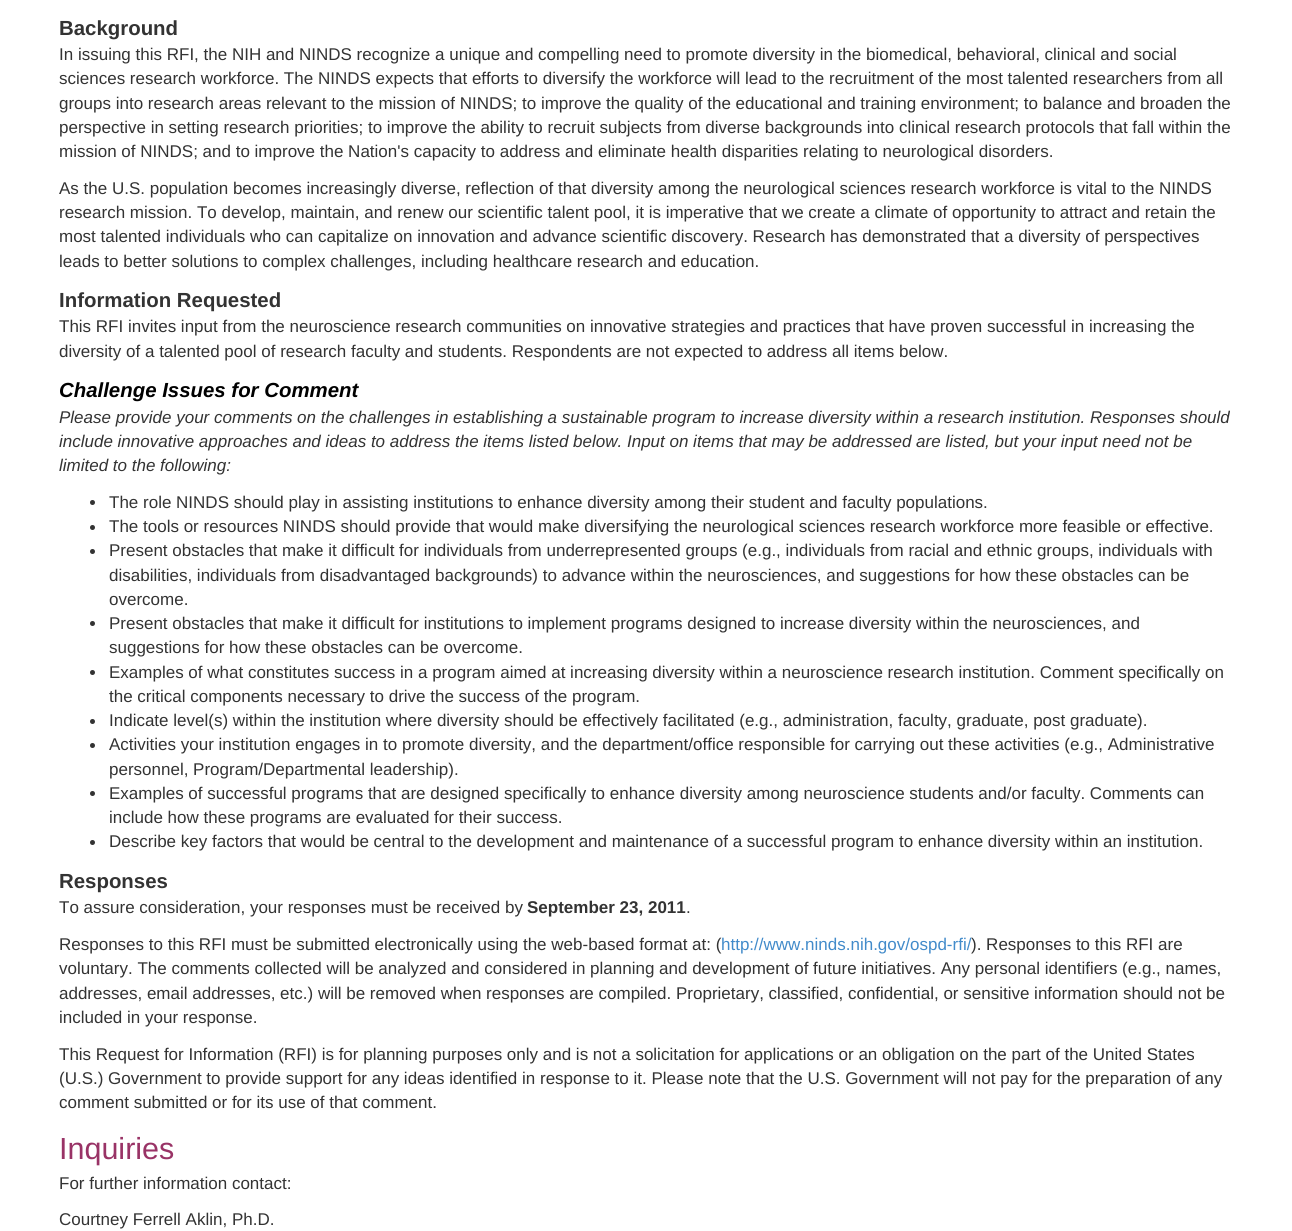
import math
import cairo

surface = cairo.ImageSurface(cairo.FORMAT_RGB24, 1292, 1231)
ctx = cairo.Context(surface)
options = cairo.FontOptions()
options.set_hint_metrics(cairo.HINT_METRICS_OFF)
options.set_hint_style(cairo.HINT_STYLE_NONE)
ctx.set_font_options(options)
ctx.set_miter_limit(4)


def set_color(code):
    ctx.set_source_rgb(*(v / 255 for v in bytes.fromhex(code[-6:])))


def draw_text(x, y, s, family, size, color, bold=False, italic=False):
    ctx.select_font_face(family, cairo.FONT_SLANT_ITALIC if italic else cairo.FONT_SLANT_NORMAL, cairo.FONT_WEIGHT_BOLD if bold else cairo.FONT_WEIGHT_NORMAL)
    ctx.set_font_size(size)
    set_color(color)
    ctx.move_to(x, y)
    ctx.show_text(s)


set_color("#ffffff")
ctx.paint()
draw_text(59, 35, "Background", "Liberation Sans", 20.4, "#333333", bold=True)
draw_text(59, 60, "In issuing this RFI, the NIH and NINDS recognize a unique and compelling need to promote diversity in the biomedical, behavioral, clinical and social", "Liberation Sans", 17, "#333333")
draw_text(59, 84, "sciences research workforce. The NINDS expects that efforts to diversify the workforce will lead to the recruitment of the most talented researchers from all", "Liberation Sans", 17, "#333333")
draw_text(59, 109, "groups into research areas relevant to the mission of NINDS; to improve the quality of the educational and training environment; to balance and broaden the", "Liberation Sans", 17, "#333333")
draw_text(59, 133, "perspective in setting research priorities; to improve the ability to recruit subjects from diverse backgrounds into clinical research protocols that fall within the", "Liberation Sans", 17, "#333333")
draw_text(59, 157, "mission of NINDS; and to improve the Nation's capacity to address and eliminate health disparities relating to neurological disorders.", "Liberation Sans", 17, "#333333")
draw_text(59, 194, "As the U.S. population becomes increasingly diverse, reflection of that diversity among the neurological sciences research workforce is vital to the NINDS", "Liberation Sans", 17, "#333333")
draw_text(59, 218, "research mission. To develop, maintain, and renew our scientific talent pool, it is imperative that we create a climate of opportunity to attract and retain the", "Liberation Sans", 17, "#333333")
draw_text(59, 242, "most talented individuals who can capitalize on innovation and advance scientific discovery. Research has demonstrated that a diversity of perspectives", "Liberation Sans", 17, "#333333")
draw_text(59, 267, "leads to better solutions to complex challenges, including healthcare research and education.", "Liberation Sans", 17, "#333333")
draw_text(59, 307, "Information Requested", "Liberation Sans", 20.4, "#333333", bold=True)
draw_text(59, 332, "This RFI invites input from the neuroscience research communities on innovative strategies and practices that have proven successful in increasing the", "Liberation Sans", 17, "#333333")
draw_text(59, 357, "diversity of a talented pool of research faculty and students. Respondents are not expected to address all items below.", "Liberation Sans", 17, "#333333")
draw_text(59, 397, "Challenge Issues for Comment", "Liberation Sans", 20.4, "#000000", bold=True, italic=True)
draw_text(59, 423, "Please provide your comments on the challenges in establishing a sustainable program to increase diversity within a research institution. Responses should", "Liberation Sans", 17, "#333333", italic=True)
draw_text(59, 447, "include innovative approaches and ideas to address the items listed below. Input on items that may be addressed are listed, but your input need not be", "Liberation Sans", 17, "#333333", italic=True)
draw_text(59, 471, "limited to the following:", "Liberation Sans", 17, "#333333", italic=True)
ctx.new_path()
ctx.arc(92.5, 502.5, 2.5, 0, 2 * math.pi)
ctx.fill()
draw_text(109, 508, "The role NINDS should play in assisting institutions to enhance diversity among their student and faculty populations.", "Liberation Sans", 17, "#333333")
ctx.new_path()
ctx.arc(92.5, 527.5, 2.5, 0, 2 * math.pi)
ctx.fill()
draw_text(109, 532, "The tools or resources NINDS should provide that would make diversifying the neurological sciences research workforce more feasible or effective.", "Liberation Sans", 17, "#333333")
ctx.new_path()
ctx.arc(92.5, 551.5, 2.5, 0, 2 * math.pi)
ctx.fill()
draw_text(109, 556, "Present obstacles that make it difficult for individuals from underrepresented groups (e.g., individuals from racial and ethnic groups, individuals with", "Liberation Sans", 17, "#333333")
draw_text(109, 581, "disabilities, individuals from disadvantaged backgrounds) to advance within the neurosciences, and suggestions for how these obstacles can be", "Liberation Sans", 17, "#333333")
draw_text(109, 605, "overcome.", "Liberation Sans", 17, "#333333")
ctx.new_path()
ctx.arc(92.5, 623.5, 2.5, 0, 2 * math.pi)
ctx.fill()
draw_text(109, 629, "Present obstacles that make it difficult for institutions to implement programs designed to increase diversity within the neurosciences, and", "Liberation Sans", 17, "#333333")
draw_text(109, 653, "suggestions for how these obstacles can be overcome.", "Liberation Sans", 17, "#333333")
ctx.new_path()
ctx.arc(92.5, 672.5, 2.5, 0, 2 * math.pi)
ctx.fill()
draw_text(109, 678, "Examples of what constitutes success in a program aimed at increasing diversity within a neuroscience research institution. Comment specifically on", "Liberation Sans", 17, "#333333")
draw_text(109, 702, "the critical components necessary to drive the success of the program.", "Liberation Sans", 17, "#333333")
ctx.new_path()
ctx.arc(92.5, 721.5, 2.5, 0, 2 * math.pi)
ctx.fill()
draw_text(109, 726, "Indicate level(s) within the institution where diversity should be effectively facilitated (e.g., administration, faculty, graduate, post graduate).", "Liberation Sans", 17, "#333333")
ctx.new_path()
ctx.arc(92.5, 745.5, 2.5, 0, 2 * math.pi)
ctx.fill()
draw_text(109, 750, "Activities your institution engages in to promote diversity, and the department/office responsible for carrying out these activities (e.g., Administrative", "Liberation Sans", 17, "#333333")
draw_text(109, 775, "personnel, Program/Departmental leadership).", "Liberation Sans", 17, "#333333")
ctx.new_path()
ctx.arc(92.5, 793.5, 2.5, 0, 2 * math.pi)
ctx.fill()
draw_text(109, 799, "Examples of successful programs that are designed specifically to enhance diversity among neuroscience students and/or faculty. Comments can", "Liberation Sans", 17, "#333333")
draw_text(109, 823, "include how these programs are evaluated for their success.", "Liberation Sans", 17, "#333333")
ctx.new_path()
ctx.arc(92.5, 842.5, 2.5, 0, 2 * math.pi)
ctx.fill()
draw_text(109, 847, "Describe key factors that would be central to the development and maintenance of a successful program to enhance diversity within an institution.", "Liberation Sans", 17, "#333333")
draw_text(59, 888, "Responses", "Liberation Sans", 20.4, "#333333", bold=True)
draw_text(59, 913, "To assure consideration, your responses must be received by", "Liberation Sans", 17, "#333333")
draw_text(527, 913, "September 23, 2011", "Liberation Sans", 17, "#333333", bold=True)
draw_text(686, 913, ".", "Liberation Sans", 17, "#333333")
draw_text(59, 950, "Responses to this RFI must be submitted electronically using the web-based format at: (", "Liberation Sans", 17, "#333333")
draw_text(721, 950, "http://www.ninds.nih.gov/ospd-rfi/", "Liberation Sans", 17, "#428bca")
draw_text(971, 950, "). Responses to this RFI are", "Liberation Sans", 17, "#333333")
draw_text(59, 974, "voluntary. The comments collected will be analyzed and considered in planning and development of future initiatives. Any personal identifiers (e.g., names,", "Liberation Sans", 17, "#333333")
draw_text(59, 999, "addresses, email addresses, etc.) will be removed when responses are compiled. Proprietary, classified, confidential, or sensitive information should not be", "Liberation Sans", 17, "#333333")
draw_text(59, 1023, "included in your response.", "Liberation Sans", 17, "#333333")
draw_text(59, 1060, "This Request for Information (RFI) is for planning purposes only and is not a solicitation for applications or an obligation on the part of the United States", "Liberation Sans", 17, "#333333")
draw_text(59, 1084, "(U.S.) Government to provide support for any ideas identified in response to it. Please note that the U.S. Government will not pay for the preparation of any", "Liberation Sans", 17, "#333333")
draw_text(59, 1108, "comment submitted or for its use of that comment.", "Liberation Sans", 17, "#333333")
draw_text(59, 1159, "Inquiries", "Liberation Sans", 30.5, "#993366")
draw_text(59, 1189, "For further information contact:", "Liberation Sans", 17, "#333333")
draw_text(59, 1225, "Courtney Ferrell Aklin, Ph.D.", "Liberation Sans", 17, "#333333")
surface.write_to_png("output.png")
